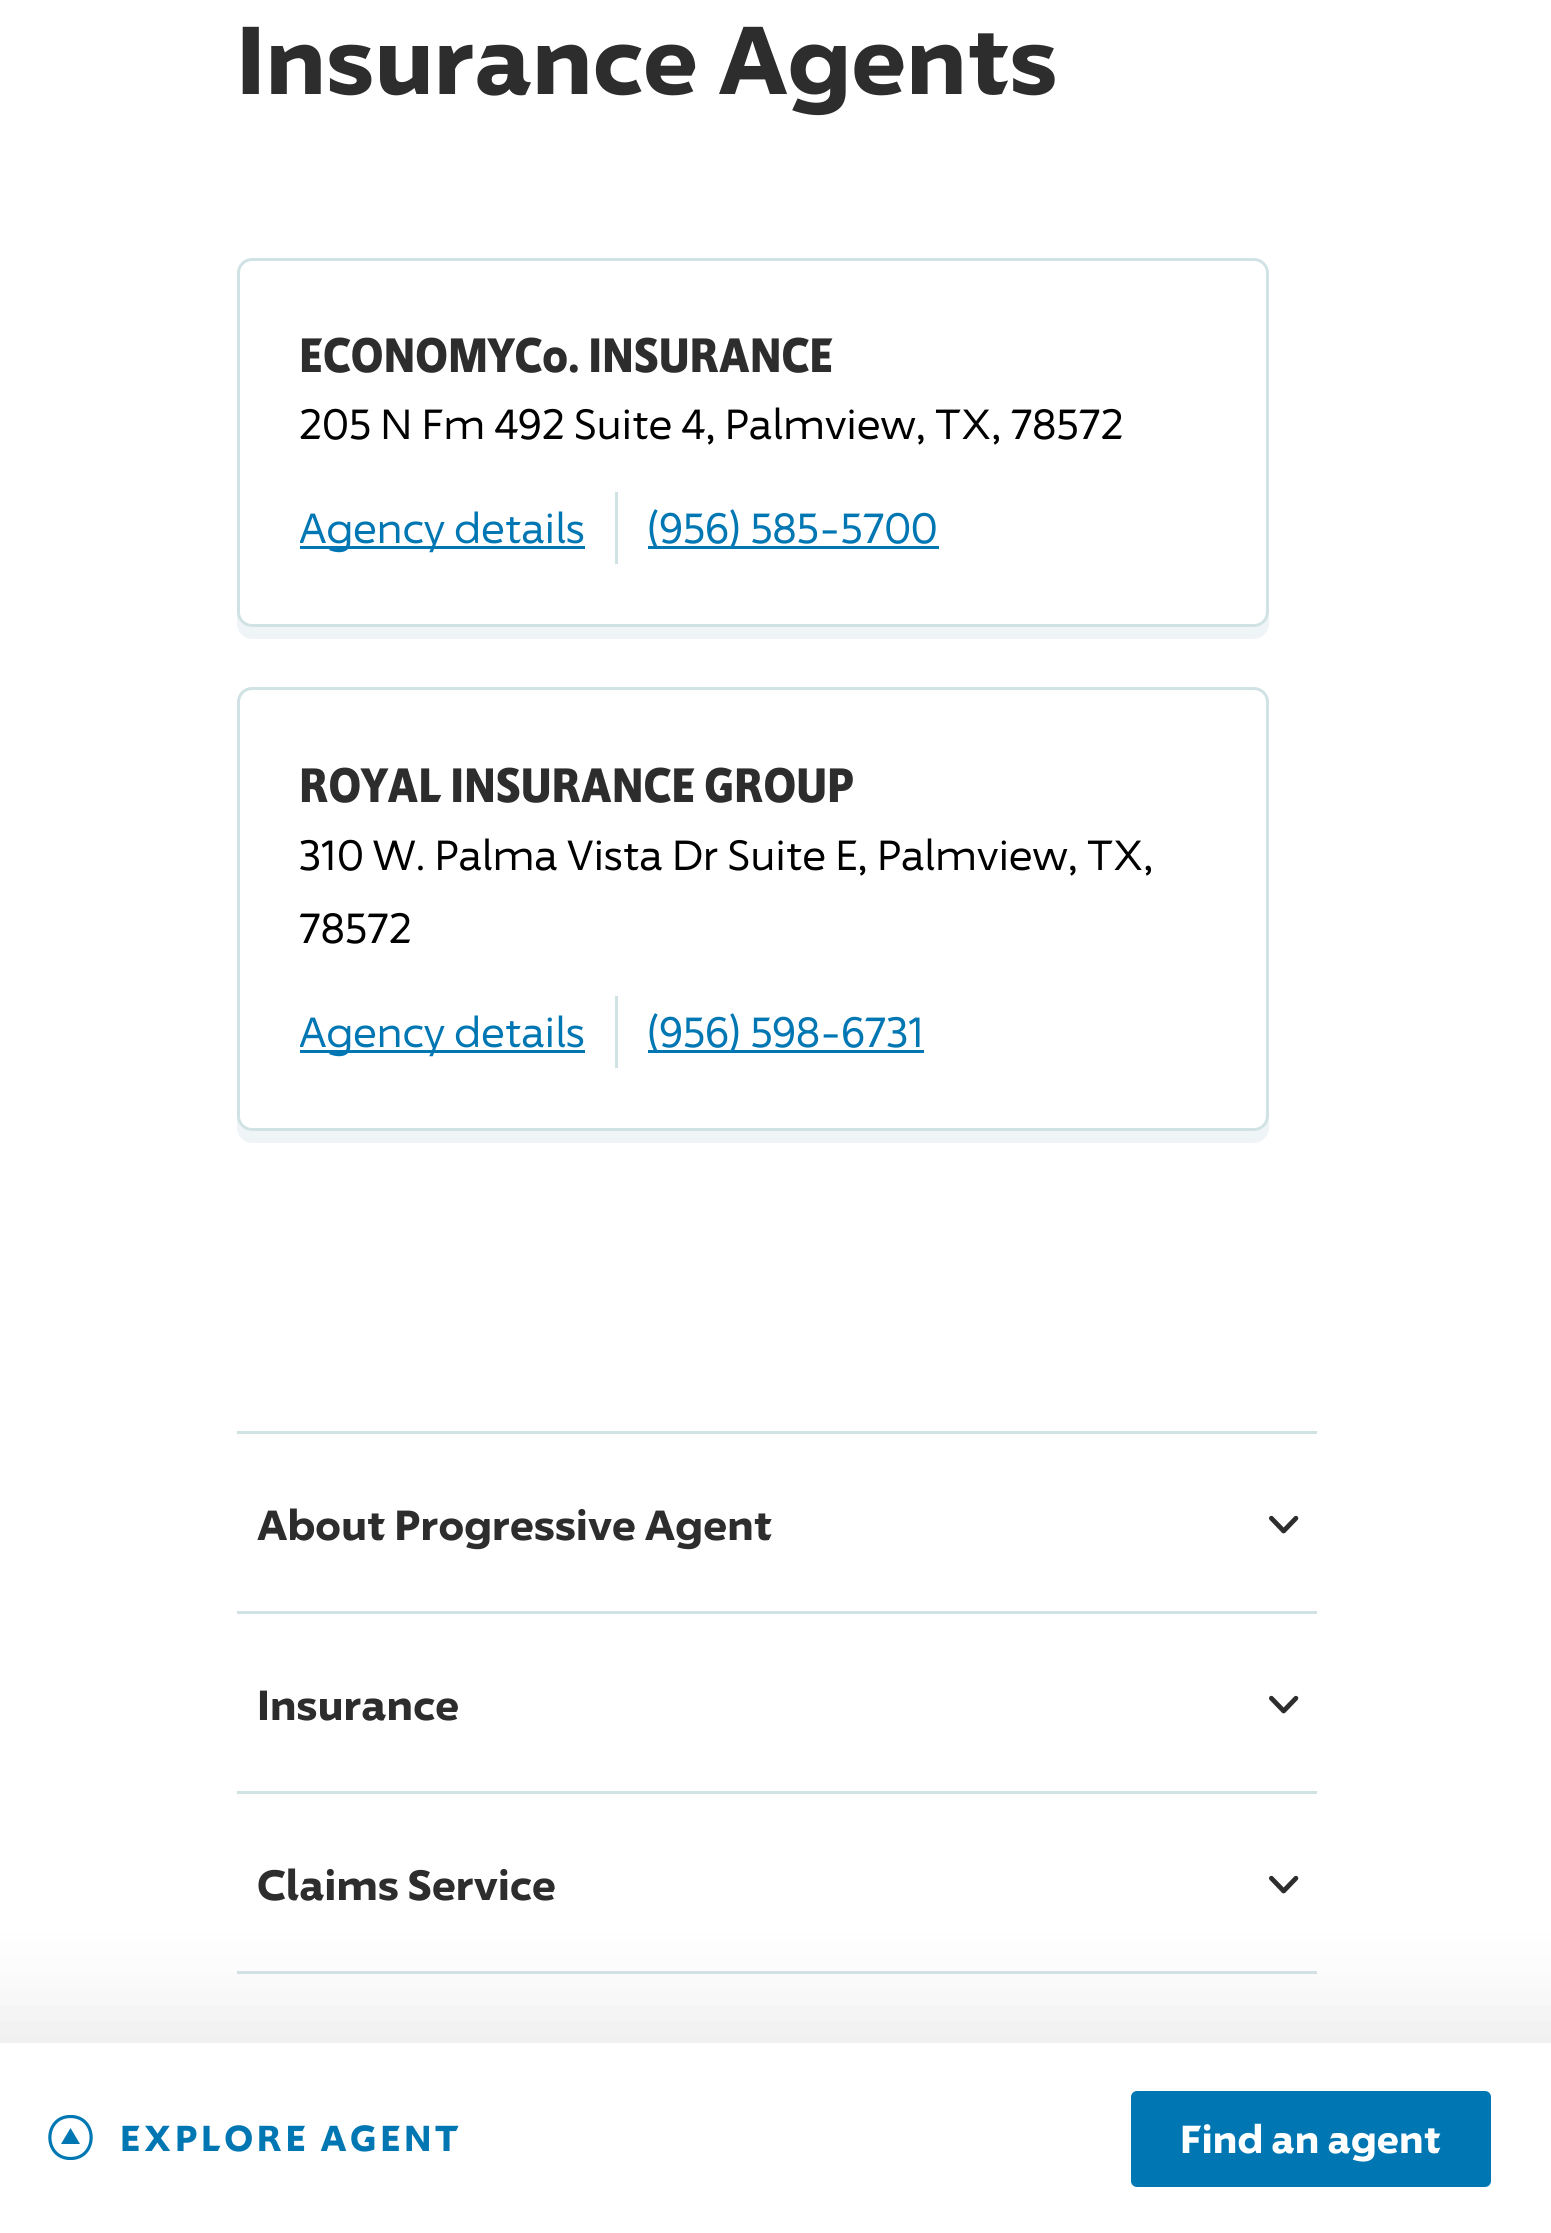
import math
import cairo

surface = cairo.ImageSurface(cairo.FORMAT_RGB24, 1551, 2233)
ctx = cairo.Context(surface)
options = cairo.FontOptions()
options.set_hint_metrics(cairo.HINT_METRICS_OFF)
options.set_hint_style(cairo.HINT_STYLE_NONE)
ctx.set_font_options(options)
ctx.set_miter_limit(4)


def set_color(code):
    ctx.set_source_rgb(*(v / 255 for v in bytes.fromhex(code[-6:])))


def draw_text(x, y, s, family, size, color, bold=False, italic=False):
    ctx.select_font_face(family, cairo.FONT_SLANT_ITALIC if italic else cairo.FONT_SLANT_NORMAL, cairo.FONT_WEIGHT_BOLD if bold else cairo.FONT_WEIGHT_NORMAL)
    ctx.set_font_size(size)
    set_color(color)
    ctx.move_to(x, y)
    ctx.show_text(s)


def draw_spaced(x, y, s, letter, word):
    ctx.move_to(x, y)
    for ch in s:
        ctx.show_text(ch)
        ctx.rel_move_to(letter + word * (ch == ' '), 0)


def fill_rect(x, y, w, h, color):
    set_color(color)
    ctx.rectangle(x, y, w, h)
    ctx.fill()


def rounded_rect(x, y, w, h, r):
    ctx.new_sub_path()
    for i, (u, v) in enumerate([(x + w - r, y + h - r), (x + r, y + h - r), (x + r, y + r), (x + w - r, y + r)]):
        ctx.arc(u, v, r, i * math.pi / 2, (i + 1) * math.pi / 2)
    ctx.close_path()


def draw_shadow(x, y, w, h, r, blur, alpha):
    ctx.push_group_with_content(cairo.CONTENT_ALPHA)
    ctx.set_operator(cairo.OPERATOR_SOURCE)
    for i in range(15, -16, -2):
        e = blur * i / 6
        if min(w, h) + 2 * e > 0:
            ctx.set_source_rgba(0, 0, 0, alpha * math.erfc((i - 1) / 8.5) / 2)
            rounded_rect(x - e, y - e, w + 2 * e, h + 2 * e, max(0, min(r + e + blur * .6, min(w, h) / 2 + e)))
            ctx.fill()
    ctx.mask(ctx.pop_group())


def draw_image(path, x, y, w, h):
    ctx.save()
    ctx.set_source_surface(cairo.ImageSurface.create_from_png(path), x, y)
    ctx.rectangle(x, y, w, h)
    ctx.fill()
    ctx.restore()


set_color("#ffffff")
ctx.paint()
draw_text(236, 94, "Insurance Agents", "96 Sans", 96, "#2d2d2d", bold=True)
set_color("#eff5f6")
ctx.new_path()
ctx.move_to(237, 612)
ctx.line_to(237, 624)
ctx.curve_to(237, 632, 244, 639, 252, 639)
ctx.line_to(1254, 639)
ctx.curve_to(1262, 639, 1269, 632, 1269, 624)
ctx.line_to(1269, 612)
ctx.curve_to(1269, 620, 1262, 627, 1254, 627)
ctx.line_to(252, 627)
ctx.curve_to(244, 627, 237, 620, 237, 612)
ctx.close_path()
ctx.fill()
set_color("#ffffff")
rounded_rect(238.5, 259.5, 1029, 366, 13.5)
ctx.fill_preserve()
set_color("#d1e2e5")
ctx.set_line_width(3)
ctx.stroke()
draw_text(299, 372, "ECONOMYCo. INSURANCE", "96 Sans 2", 48, "#2d2d2d", bold=True)
draw_text(299, 439, "205 N Fm 492 Suite 4, Palmview, TX, 78572", "96 Sans", 42, "#000000")
fill_rect(300, 546, 285, 3, "#0077b3")
ctx.save()
ctx.rectangle(300, 492, 906, 96)
ctx.clip()
draw_text(299, 543, "Agency details", "96 Sans", 42, "#0077b3")
ctx.restore()
fill_rect(615, 492, 3, 72, "#d1e2e5")
fill_rect(648, 546, 291, 3, "#0077b3")
draw_text(647, 543, "(956) 585-5700", "96 Sans", 42, "#0077b3")
set_color("#eff5f6")
ctx.new_path()
ctx.move_to(237, 1116)
ctx.line_to(237, 1128)
ctx.curve_to(237, 1136, 244, 1143, 252, 1143)
ctx.line_to(1254, 1143)
ctx.curve_to(1262, 1143, 1269, 1136, 1269, 1128)
ctx.line_to(1269, 1116)
ctx.curve_to(1269, 1124, 1262, 1131, 1254, 1131)
ctx.line_to(252, 1131)
ctx.curve_to(244, 1131, 237, 1124, 237, 1116)
ctx.close_path()
ctx.fill()
set_color("#ffffff")
rounded_rect(238.5, 688.5, 1029, 441, 13.5)
ctx.fill_preserve()
set_color("#d1e2e5")
ctx.stroke()
draw_text(299, 802, "ROYAL INSURANCE GROUP", "96 Sans 2", 48, "#2d2d2d", bold=True)
draw_text(299, 870, "310 W. Palma Vista Dr Suite E, Palmview, TX,", "96 Sans", 42, "#000000")
draw_text(299, 943, "78572", "96 Sans", 42, "#000000")
fill_rect(300, 1050, 285, 3, "#0077b3")
ctx.save()
ctx.rectangle(300, 996, 906, 96)
ctx.clip()
draw_text(299, 1047, "Agency details", "96 Sans", 42, "#0077b3")
ctx.restore()
fill_rect(615, 996, 3, 72, "#d1e2e5")
fill_rect(648, 1050, 276, 3, "#0077b3")
draw_text(647, 1047, "(956) 598-6731", "96 Sans", 42, "#0077b3")
draw_image("assets/img1.png", 1269, 1875, 30, 19)
fill_rect(237, 1971, 1080, 3, "#d1e2e5")
ctx.save()
ctx.rectangle(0, 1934, 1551, 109)
ctx.clip()
set_color("#cccccc")
draw_shadow(-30, 2013, 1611, 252, 0, 48, 0.4)
ctx.restore()
ctx.save()
ctx.rectangle(48, 2115, 45, 45)
ctx.clip()
ctx.new_path()
ctx.move_to(70.5, 2158.5)
ctx.curve_to(43, 2158.5, 43, 2116.5, 70.5, 2116.5)
ctx.curve_to(98, 2116.5, 98, 2158.5, 70.5, 2158.5)
ctx.close_path()
set_color("#0077b3")
ctx.set_line_width(3.2)
ctx.stroke()
ctx.restore()
set_color("#0077b3")
ctx.new_path()
ctx.move_to(70.5, 2128)
ctx.line_to(80, 2144)
ctx.line_to(61, 2144)
ctx.close_path()
ctx.fill()
ctx.select_font_face("96 Sans", cairo.FONT_SLANT_NORMAL, cairo.FONT_WEIGHT_BOLD)
ctx.set_font_size(36)
draw_spaced(120, 2151, "EXPLORE AGENT", 3.6, 0)
rounded_rect(1132.5, 2092.5, 357, 93, 4.5)
ctx.fill_preserve()
ctx.stroke()
draw_text(1180, 2153, "Find an agent", "96 Sans", 39, "#ffffff", bold=True)
fill_rect(237, 1431, 1080, 3, "#d1e2e5")
draw_text(257, 1540, "About Progressive Agent", "96 Sans", 42, "#2d2d2d", bold=True)
draw_image("assets/img1.png", 1269, 1515, 30, 19)
fill_rect(237, 1611, 1080, 3, "#d1e2e5")
draw_text(257, 1720, "Insurance", "96 Sans", 42, "#2d2d2d", bold=True)
draw_image("assets/img1.png", 1269, 1695, 30, 19)
fill_rect(237, 1791, 1080, 3, "#d1e2e5")
draw_text(257, 1900, "Claims Service", "96 Sans", 42, "#2d2d2d", bold=True)
surface.write_to_png("output.png")
